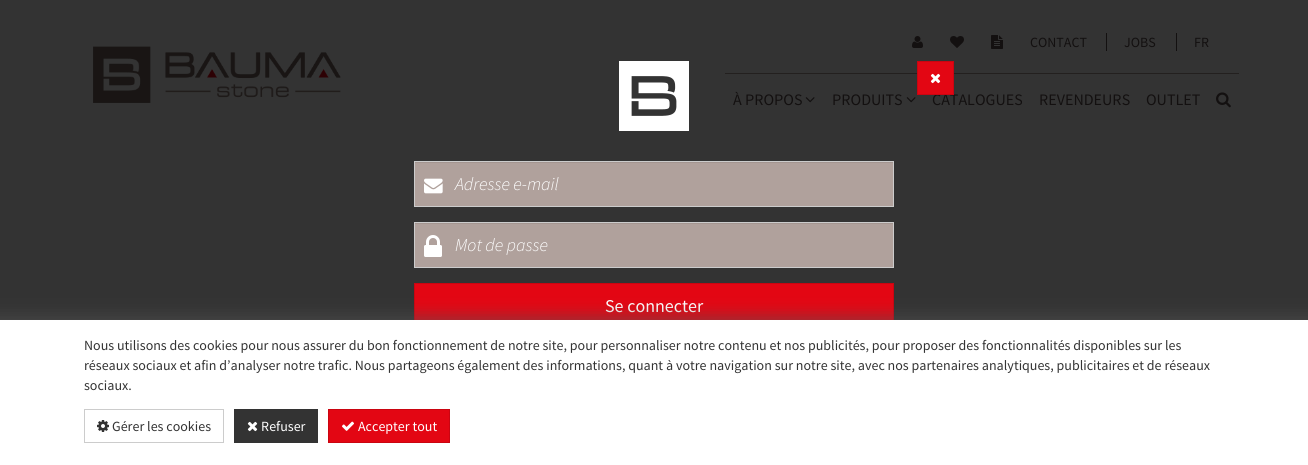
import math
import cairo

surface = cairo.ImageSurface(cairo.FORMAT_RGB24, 1308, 465)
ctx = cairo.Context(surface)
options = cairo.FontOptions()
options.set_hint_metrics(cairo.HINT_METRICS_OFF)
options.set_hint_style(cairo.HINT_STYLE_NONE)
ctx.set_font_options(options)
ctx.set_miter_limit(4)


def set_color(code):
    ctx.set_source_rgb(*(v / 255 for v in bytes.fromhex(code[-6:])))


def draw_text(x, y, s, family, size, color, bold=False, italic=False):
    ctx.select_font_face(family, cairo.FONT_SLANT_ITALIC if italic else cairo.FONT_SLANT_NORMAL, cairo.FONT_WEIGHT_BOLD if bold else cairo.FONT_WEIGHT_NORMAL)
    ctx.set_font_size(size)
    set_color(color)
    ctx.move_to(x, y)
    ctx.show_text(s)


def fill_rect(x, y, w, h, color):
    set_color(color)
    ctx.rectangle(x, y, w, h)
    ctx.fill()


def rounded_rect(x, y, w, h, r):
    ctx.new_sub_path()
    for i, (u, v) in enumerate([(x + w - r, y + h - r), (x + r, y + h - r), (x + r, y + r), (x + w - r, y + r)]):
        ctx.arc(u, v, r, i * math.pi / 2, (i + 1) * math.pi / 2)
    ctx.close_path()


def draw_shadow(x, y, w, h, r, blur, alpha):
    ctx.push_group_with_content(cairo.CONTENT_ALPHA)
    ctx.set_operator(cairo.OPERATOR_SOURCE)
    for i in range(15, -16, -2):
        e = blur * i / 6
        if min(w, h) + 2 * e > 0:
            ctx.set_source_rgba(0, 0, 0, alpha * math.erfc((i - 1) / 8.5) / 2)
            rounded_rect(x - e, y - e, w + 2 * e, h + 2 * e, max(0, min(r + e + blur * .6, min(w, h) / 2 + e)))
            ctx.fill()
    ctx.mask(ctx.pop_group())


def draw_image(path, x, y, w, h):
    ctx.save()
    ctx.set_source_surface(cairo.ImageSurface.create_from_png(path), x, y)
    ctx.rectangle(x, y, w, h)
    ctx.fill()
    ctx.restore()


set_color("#333333")
ctx.paint()
draw_image("assets/img1.png", 93, 46, 248, 57)
draw_text(1030, 47, "CONTACT", "Source Sans Pro", 14, "#131010")
fill_rect(1106, 33, 1, 18, "#131010")
draw_text(1124, 47, "JOBS", "Source Sans Pro", 14, "#131010")
fill_rect(1176, 33, 1, 18, "#131010")
draw_text(1194, 47, "FR", "Source Sans Pro", 14, "#131010")
draw_image("assets/img2.png", 912, 36, 11, 12)
draw_image("assets/img3.png", 950, 36, 14, 12)
draw_image("assets/img4.png", 991, 35, 12, 14)
draw_image("assets/img5.png", 619, 61, 70, 70)
fill_rect(725, 73, 514, 1, "#23201f")
draw_text(932, 105, "CATALOGUES", "Source Sans Pro", 16, "#131010")
set_color("#e30613")
ctx.rectangle(917.5, 61.5, 36, 33)
ctx.fill_preserve()
set_color("#ca0511")
ctx.set_line_width(1)
ctx.stroke()
draw_image("assets/img6.png", 930, 73, 11, 11)
fill_rect(415, 163, 478, 43, "#b0a19c")
fill_rect(415, 162, 478, 1, "#a39590")
ctx.rectangle(414.5, 161.5, 479, 45)
set_color("#cccccc")
ctx.stroke()
draw_image("assets/img7.png", 424, 178, 19, 16)
draw_text(455, 190, "Adresse e-mail", "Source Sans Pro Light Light", 18, "#ffffff", italic=True)
fill_rect(415, 224, 478, 43, "#b0a19c")
fill_rect(415, 223, 478, 1, "#a39590")
ctx.rectangle(414.5, 222.5, 479, 45)
set_color("#cccccc")
ctx.stroke()
draw_image("assets/img8.png", 424, 235, 18, 22)
draw_text(455, 251, "Mot de passe", "Source Sans Pro Light Light", 18, "#ffffff", italic=True)
fill_rect(415, 284, 478, 36, "#e30613")
ctx.rectangle(414.5, 283.5, 479, 44)
set_color("#ca0511")
ctx.stroke()
draw_text(605, 312, "Se connecter", "Source Sans Pro", 18, "#ffffff")
draw_text(733, 105, "À PROPOS", "Source Sans Pro", 16, "#131010")
draw_image("assets/img9.png", 805, 97, 10, 6)
draw_text(832, 105, "PRODUITS", "Source Sans Pro", 16, "#131010")
draw_image("assets/img9.png", 906, 97, 10, 6)
draw_text(1039, 105, "REVENDEURS", "Source Sans Pro", 16, "#131010")
draw_text(1146, 105, "OUTLET", "Source Sans Pro", 16, "#131010")
draw_image("assets/img10.png", 1216, 92, 15, 16)
set_color("#555555")
draw_shadow(-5, 315, 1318, 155, 0, 7.5, 0.5)
fill_rect(0, 320, 1308, 145, "#ffffff")
draw_text(84, 350, "Nous utilisons des cookies pour nous assurer du bon fonctionnement de notre site, pour personnaliser notre contenu et nos publicités, pour proposer des fonctionnalités disponibles sur les", "Source Sans Pro", 14, "#333333")
draw_text(84, 370, "réseaux sociaux et afin d’analyser notre trafic. Nous partageons également des informations, quant à votre navigation sur notre site, avec nos partenaires analytiques, publicitaires et de réseaux", "Source Sans Pro", 14, "#333333")
draw_text(84, 390, "sociaux.", "Source Sans Pro", 14, "#333333")
ctx.rectangle(84.5, 409.5, 139, 33)
set_color("#cccccc")
ctx.stroke()
draw_image("assets/img11.png", 97, 420, 12, 12)
draw_text(112, 431, "Gérer les cookies", "Source Sans Pro", 14, "#333333")
fill_rect(234, 409, 84, 34, "#333333")
draw_image("assets/img12.png", 247, 421, 11, 11)
draw_text(261, 431, "Refuser", "Source Sans Pro", 14, "#ffffff")
set_color("#e30613")
ctx.rectangle(328.5, 409.5, 121, 33)
ctx.fill_preserve()
set_color("#ca0511")
ctx.stroke()
draw_image("assets/img13.png", 342, 421, 12, 10)
draw_text(358, 431, "Accepter tout", "Source Sans Pro", 14, "#ffffff")
surface.write_to_png("output.png")
